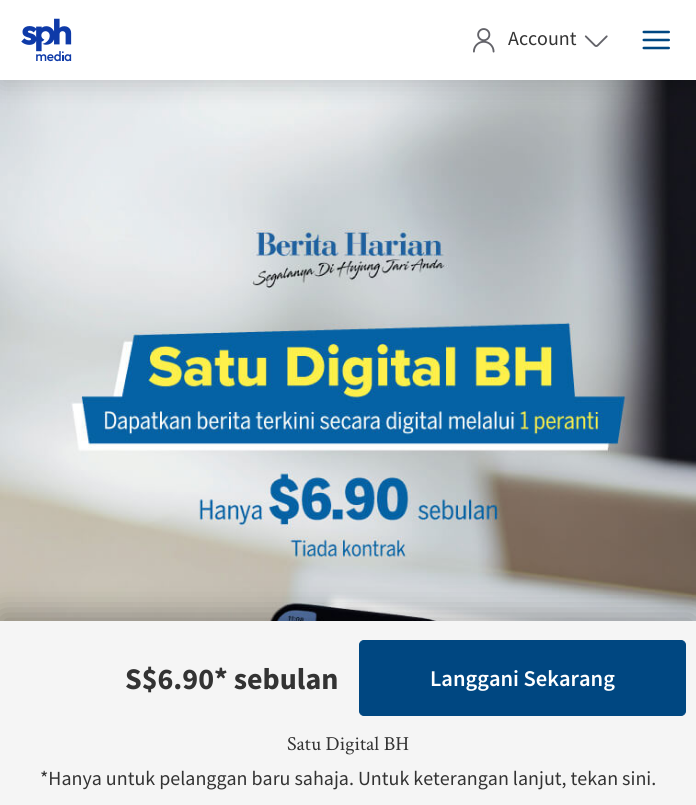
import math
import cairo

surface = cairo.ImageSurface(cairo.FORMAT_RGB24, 696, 805)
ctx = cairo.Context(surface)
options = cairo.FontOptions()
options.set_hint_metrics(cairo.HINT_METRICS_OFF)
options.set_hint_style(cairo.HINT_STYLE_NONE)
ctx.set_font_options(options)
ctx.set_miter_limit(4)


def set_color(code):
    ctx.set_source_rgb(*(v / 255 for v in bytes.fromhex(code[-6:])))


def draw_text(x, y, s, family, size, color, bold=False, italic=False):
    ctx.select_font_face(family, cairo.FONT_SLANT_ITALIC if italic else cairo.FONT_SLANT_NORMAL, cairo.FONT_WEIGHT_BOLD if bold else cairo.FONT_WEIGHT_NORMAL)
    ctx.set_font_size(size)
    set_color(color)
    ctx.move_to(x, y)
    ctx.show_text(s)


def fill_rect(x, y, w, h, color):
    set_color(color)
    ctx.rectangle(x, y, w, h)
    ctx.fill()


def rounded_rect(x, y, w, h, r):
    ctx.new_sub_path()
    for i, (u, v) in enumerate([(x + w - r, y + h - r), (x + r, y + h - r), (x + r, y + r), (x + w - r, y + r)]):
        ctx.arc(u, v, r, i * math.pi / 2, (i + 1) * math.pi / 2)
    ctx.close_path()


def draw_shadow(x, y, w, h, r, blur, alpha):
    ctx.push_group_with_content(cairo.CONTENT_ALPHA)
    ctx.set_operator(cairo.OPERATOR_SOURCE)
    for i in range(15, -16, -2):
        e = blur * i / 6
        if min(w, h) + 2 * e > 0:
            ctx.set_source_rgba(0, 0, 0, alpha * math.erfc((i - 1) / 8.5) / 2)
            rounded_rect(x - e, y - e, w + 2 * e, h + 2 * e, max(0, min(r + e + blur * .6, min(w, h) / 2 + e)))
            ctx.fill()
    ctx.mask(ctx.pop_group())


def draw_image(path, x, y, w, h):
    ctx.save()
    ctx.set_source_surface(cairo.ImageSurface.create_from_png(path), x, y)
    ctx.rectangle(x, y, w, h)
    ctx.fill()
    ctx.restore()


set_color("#ffffff")
ctx.paint()
draw_image("assets/img5.png", 0, 80, 696, 541)
set_color("#000000")
draw_shadow(0, 5, 696, 80, 0, 12.5, 0.15)
fill_rect(0, 0, 696, 80, "#ffffff")
draw_image("assets/img1.png", 21, 18, 51, 44)
draw_image("assets/img2.png", 473, 28, 22, 25)
draw_text(508, 45, "Account", "Source Sans Pro", 20, "#333333")
draw_image("assets/img3.png", 584, 35, 24, 12)
draw_image("assets/img4.png", 642, 30, 28, 20)
set_color("#000000")
draw_shadow(0, 615, 696, 184, 0, 15.5, 0.3)
fill_rect(0, 621, 696, 184, "#f5f5f5")
draw_text(125, 689, "S$6.90* sebulan", "Source Sans Pro", 30, "#333333", bold=True)
set_color("#004781")
rounded_rect(359.5, 640.5, 326, 75, 4.5)
ctx.fill_preserve()
ctx.set_line_width(1)
ctx.stroke()
draw_text(430, 686, "Langgani Sekarang", "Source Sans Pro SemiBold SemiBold", 22.5, "#ffffff")
draw_text(287, 750, "Satu Digital BH", "Crimson Text", 20, "#333333")
draw_text(40, 785, "*Hanya untuk pelanggan baru sahaja. Untuk keterangan lanjut, tekan sini.", "Source Sans Pro", 20, "#333333")
surface.write_to_png("output.png")
